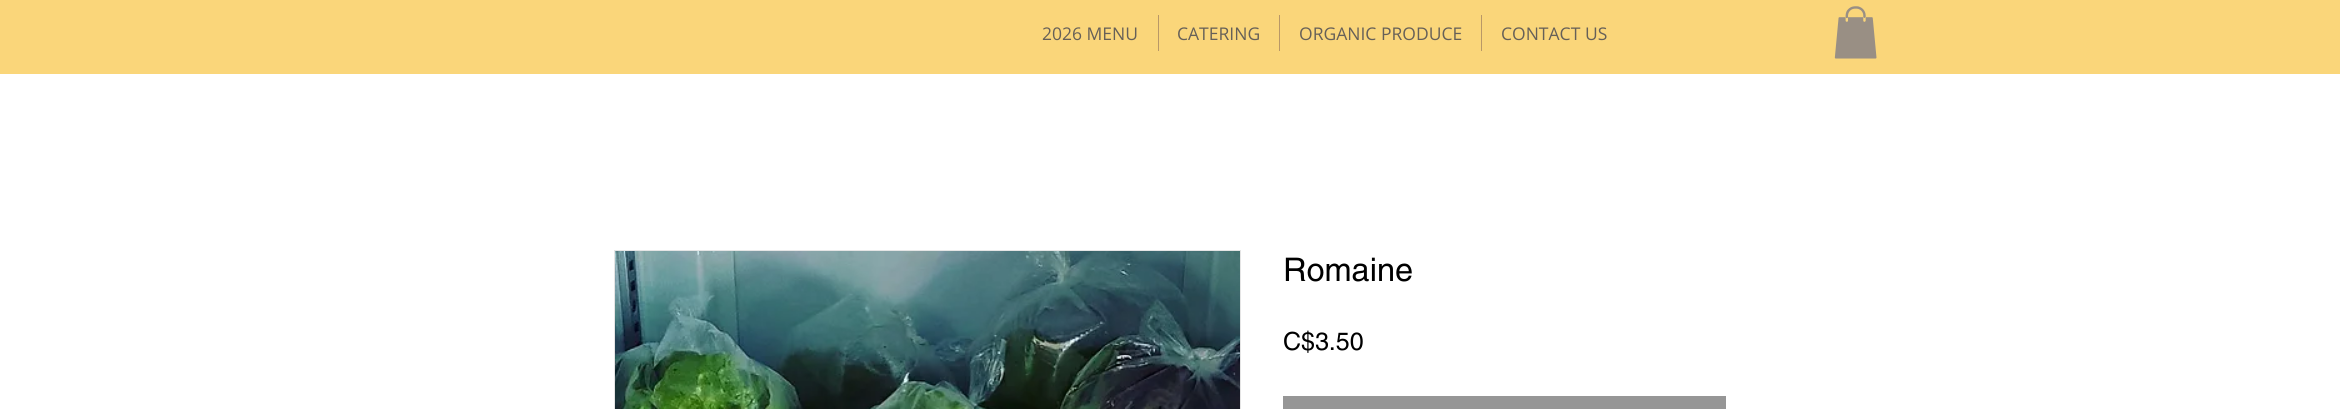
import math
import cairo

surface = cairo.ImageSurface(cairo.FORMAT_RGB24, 2340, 409)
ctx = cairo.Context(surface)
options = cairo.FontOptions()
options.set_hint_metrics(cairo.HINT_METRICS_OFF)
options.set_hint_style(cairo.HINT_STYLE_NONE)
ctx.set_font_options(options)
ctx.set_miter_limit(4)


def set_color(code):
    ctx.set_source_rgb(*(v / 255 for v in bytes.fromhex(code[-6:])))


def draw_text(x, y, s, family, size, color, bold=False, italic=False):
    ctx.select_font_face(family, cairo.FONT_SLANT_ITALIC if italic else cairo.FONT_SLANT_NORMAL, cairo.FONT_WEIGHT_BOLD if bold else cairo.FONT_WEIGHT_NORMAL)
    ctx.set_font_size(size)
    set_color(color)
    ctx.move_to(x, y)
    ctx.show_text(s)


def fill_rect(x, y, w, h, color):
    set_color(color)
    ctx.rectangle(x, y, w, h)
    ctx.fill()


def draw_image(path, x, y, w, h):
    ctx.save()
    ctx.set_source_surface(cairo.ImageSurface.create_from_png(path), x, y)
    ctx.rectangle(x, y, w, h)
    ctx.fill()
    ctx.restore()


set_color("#ffffff")
ctx.paint()
fill_rect(0, 0, 2340, 74, "#fad67a")
draw_text(1042, 40, "2026 MENU", "Open Sans", 17.5, "#666058")
fill_rect(1158, 15, 1, 36, "#b99867")
draw_text(1177, 40, "CATERING", "Open Sans", 17.5, "#666058")
fill_rect(1279, 15, 1, 36, "#b99867")
draw_text(1299, 40, "ORGANIC PRODUCE", "Open Sans", 17.5, "#666058")
fill_rect(1481, 15, 1, 36, "#b99867")
draw_text(1501, 40, "CONTACT US", "Open Sans", 17.5, "#666058")
draw_image("assets/img1.png", 1834, 6, 43, 53)
ctx.rectangle(614.5, 250.5, 626, 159)
set_color("#e5e5e5")
ctx.set_line_width(1)
ctx.stroke()
draw_image("assets/img2.png", 615, 251, 625, 158)
draw_text(1283, 281, "Romaine", "helvetica", 32.5, "#000000")
draw_text(1283, 350, "C$3.50", "helvetica", 25, "#000000")
fill_rect(1283, 396, 443, 13, "#969696")
surface.write_to_png("output.png")
